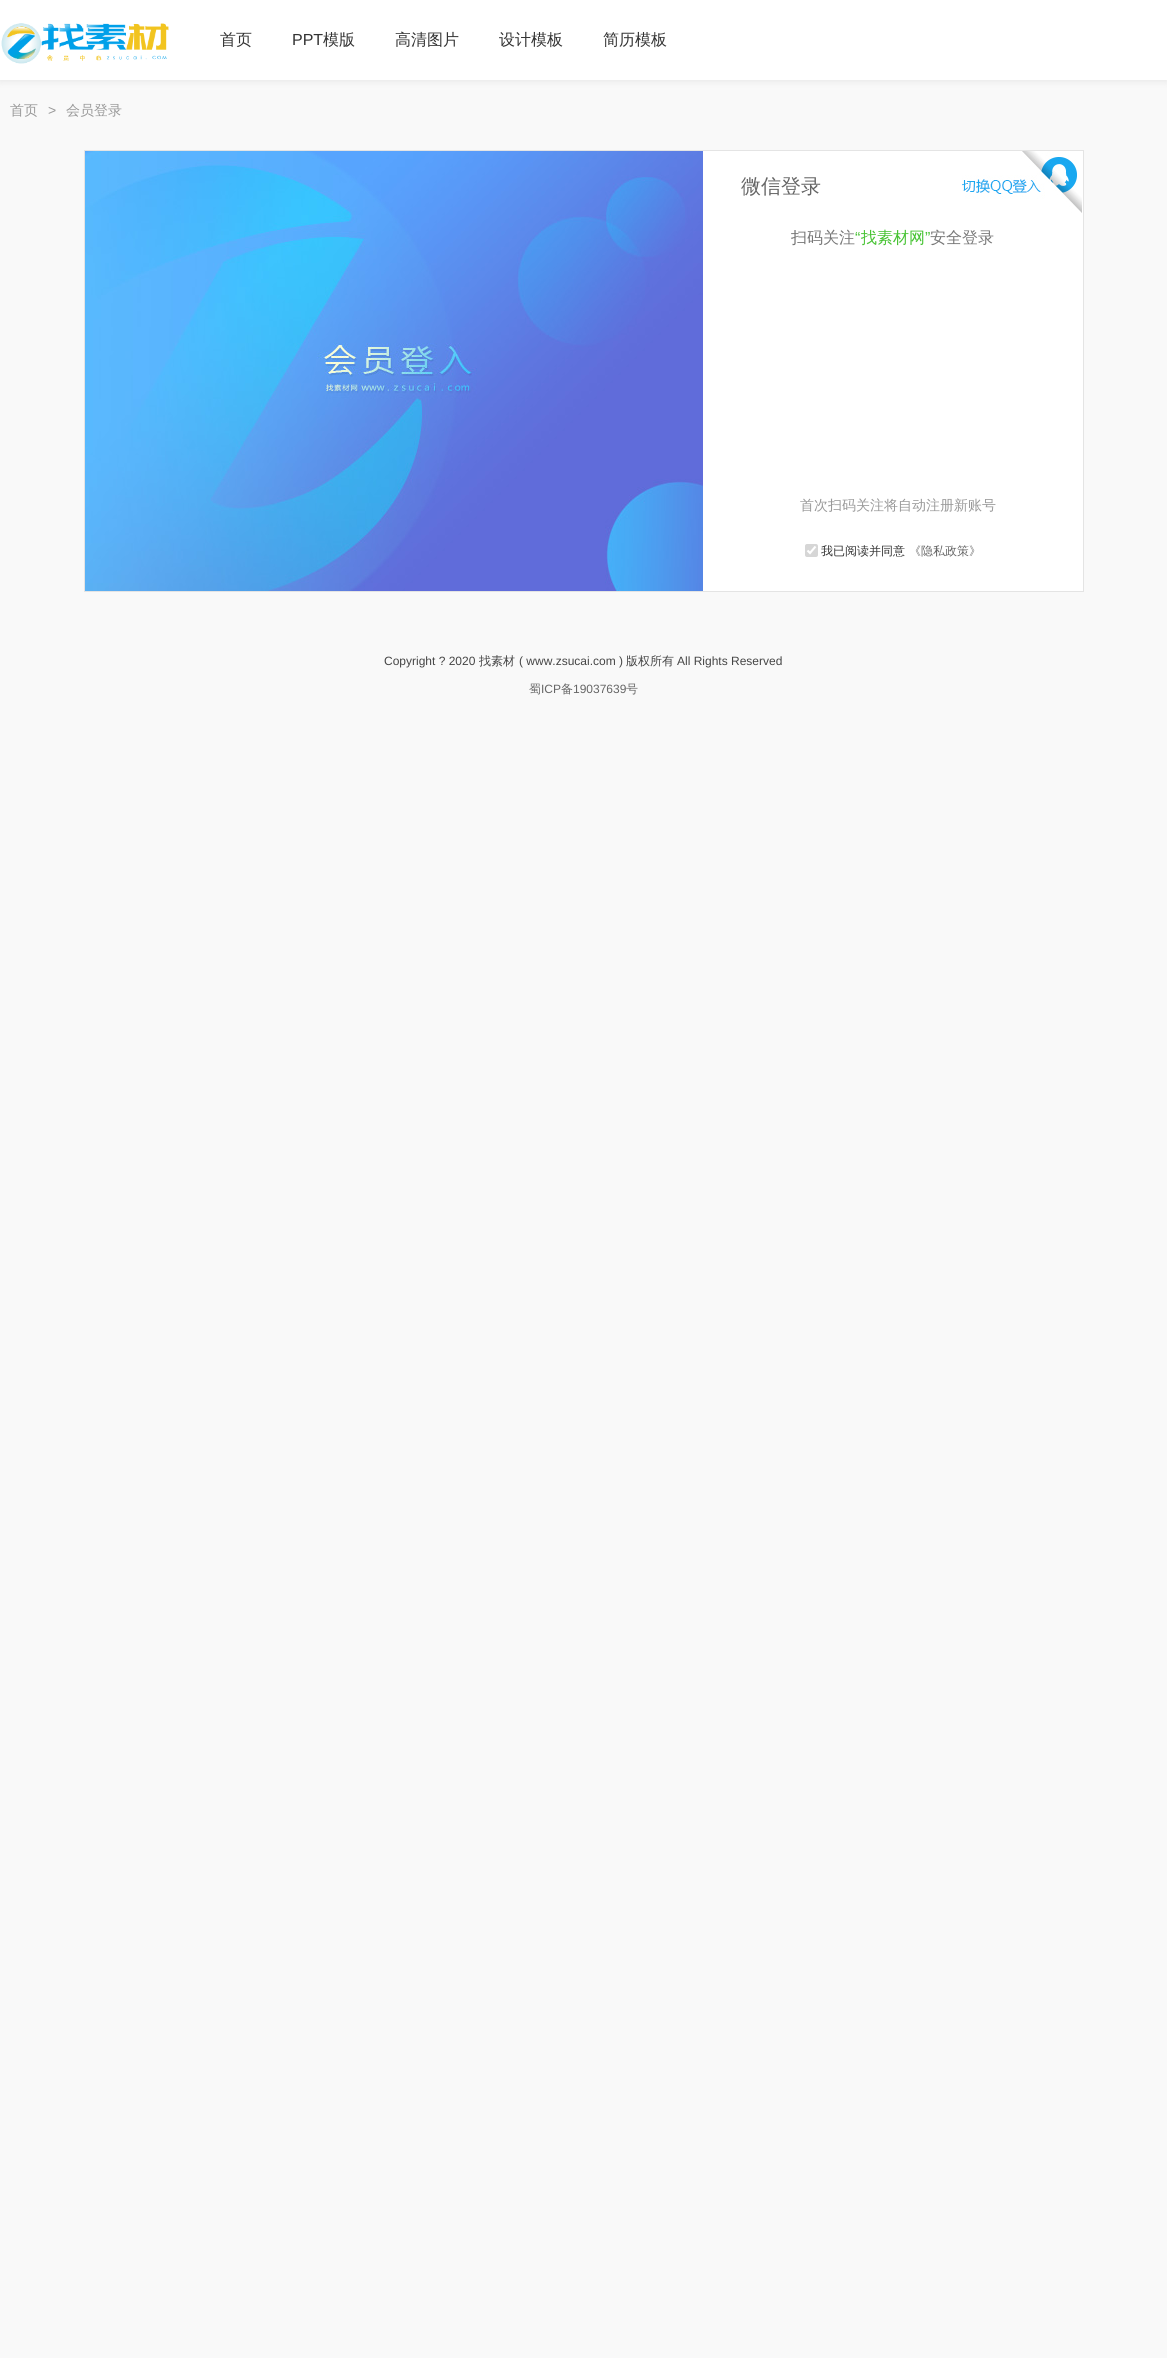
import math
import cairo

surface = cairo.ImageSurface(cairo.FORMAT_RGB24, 1167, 2358)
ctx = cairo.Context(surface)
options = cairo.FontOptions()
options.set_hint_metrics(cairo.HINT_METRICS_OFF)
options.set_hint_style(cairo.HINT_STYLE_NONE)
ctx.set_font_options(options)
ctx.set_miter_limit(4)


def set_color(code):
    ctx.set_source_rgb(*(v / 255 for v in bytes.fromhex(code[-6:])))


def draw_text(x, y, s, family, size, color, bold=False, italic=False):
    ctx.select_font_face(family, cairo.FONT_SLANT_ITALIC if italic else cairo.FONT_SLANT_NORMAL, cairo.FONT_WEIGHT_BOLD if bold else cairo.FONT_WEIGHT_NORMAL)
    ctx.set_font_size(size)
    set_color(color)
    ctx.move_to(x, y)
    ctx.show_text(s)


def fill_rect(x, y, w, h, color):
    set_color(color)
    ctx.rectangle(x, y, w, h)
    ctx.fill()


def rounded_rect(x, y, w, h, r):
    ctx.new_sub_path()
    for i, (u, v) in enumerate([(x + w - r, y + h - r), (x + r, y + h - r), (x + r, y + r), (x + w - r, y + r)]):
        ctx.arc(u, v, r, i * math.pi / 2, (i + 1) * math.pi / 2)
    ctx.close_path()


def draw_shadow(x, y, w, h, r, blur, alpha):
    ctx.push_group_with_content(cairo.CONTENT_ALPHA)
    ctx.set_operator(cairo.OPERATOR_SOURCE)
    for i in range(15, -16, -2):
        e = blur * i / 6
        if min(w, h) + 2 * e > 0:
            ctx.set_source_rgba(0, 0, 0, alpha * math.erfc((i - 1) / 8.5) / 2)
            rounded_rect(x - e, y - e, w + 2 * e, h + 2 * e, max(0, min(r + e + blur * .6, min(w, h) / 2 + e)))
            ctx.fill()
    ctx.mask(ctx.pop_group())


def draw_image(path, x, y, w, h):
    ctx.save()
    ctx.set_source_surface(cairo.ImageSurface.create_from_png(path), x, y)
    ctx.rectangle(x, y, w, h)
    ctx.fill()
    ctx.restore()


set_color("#f9f9f9")
ctx.paint()
set_color("#000000")
draw_shadow(0, 0, 1167, 80, 0, 4.5, 0.1)
fill_rect(0, 0, 1167, 80, "#ffffff")
draw_image("assets/img1.png", 1, 23, 168, 41)
draw_text(220, 45, "首页", "WenQuanYi Zen Hei Medium", 16, "#333333")
draw_text(292, 45, "PPT", "Liberation Sans", 16, "#333333")
draw_text(323, 45, "模版", "WenQuanYi Zen Hei Medium", 16, "#333333")
draw_text(395, 45, "高清图片", "WenQuanYi Zen Hei Medium", 16, "#333333")
draw_text(499, 45, "设计模板", "WenQuanYi Zen Hei Medium", 16, "#333333")
draw_text(603, 45, "简历模板", "WenQuanYi Zen Hei Medium", 16, "#333333")
draw_text(10, 115, "首页", "WenQuanYi Zen Hei Medium", 14, "#999999")
draw_text(48, 115, ">", "Liberation Sans", 14, "#999999")
draw_text(66, 115, "会员登录", "WenQuanYi Zen Hei Medium", 14, "#999999")
ctx.rectangle(84.5, 150.5, 999, 441)
set_color("#e4e4e4")
ctx.set_line_width(1)
ctx.stroke()
draw_image("assets/img2.png", 85, 151, 618, 440)
fill_rect(703, 151, 380, 440, "#ffffff")
draw_text(741, 193, "微信登录", "WenQuanYi Zen Hei Medium", 20, "#666666")
draw_text(791, 243, "扫码关注", "WenQuanYi Zen Hei Medium", 16, "#777777")
draw_text(855, 243, "“", "Liberation Sans", 16, "#47c333")
draw_text(861, 243, "找素材网", "WenQuanYi Zen Hei Medium", 16, "#47c333")
draw_text(925, 243, "”", "Liberation Sans", 16, "#47c333")
draw_text(930, 243, "安全登录", "WenQuanYi Zen Hei Medium", 16, "#777777")
draw_text(800, 510, "首次扫码关注将自动注册新账号", "WenQuanYi Zen Hei Medium", 14, "#999999")
set_color("#d6d6d6")
rounded_rect(805, 544, 13, 13, 2)
ctx.fill()
ctx.new_path()
ctx.move_to(807.5, 550.5)
ctx.line_to(810, 553)
ctx.line_to(815.5, 546.5)
set_color("#ffffff")
ctx.set_line_width(2.1)
ctx.stroke()
draw_text(821, 555, "我已阅读并同意", "WenQuanYi Zen Hei Medium", 12, "#333333")
draw_text(909, 555, "《隐私政策》", "WenQuanYi Zen Hei Medium", 12, "#666666")
draw_image("assets/img3.png", 962, 151, 120, 62)
draw_text(384, 665, "Copyright ? 2020", "Liberation Sans", 12, "#454545")
draw_text(479, 665, "找素材", "WenQuanYi Zen Hei Medium", 12, "#454545")
draw_text(519, 665, "( www.zsucai.com )", "Liberation Sans", 12, "#454545")
draw_text(626, 665, "版权所有", "WenQuanYi Zen Hei Medium", 12, "#454545")
draw_text(677, 665, "All Rights Reserved", "Liberation Sans", 12, "#454545")
draw_text(529, 693, "蜀", "WenQuanYi Zen Hei Medium", 12, "#666666")
draw_text(541, 693, "ICP", "Liberation Sans", 12, "#666666")
draw_text(561, 693, "备", "WenQuanYi Zen Hei Medium", 12, "#666666")
draw_text(573, 693, "19037639", "Liberation Sans", 12, "#666666")
draw_text(626, 693, "号", "WenQuanYi Zen Hei Medium", 12, "#666666")
surface.write_to_png("output.png")
